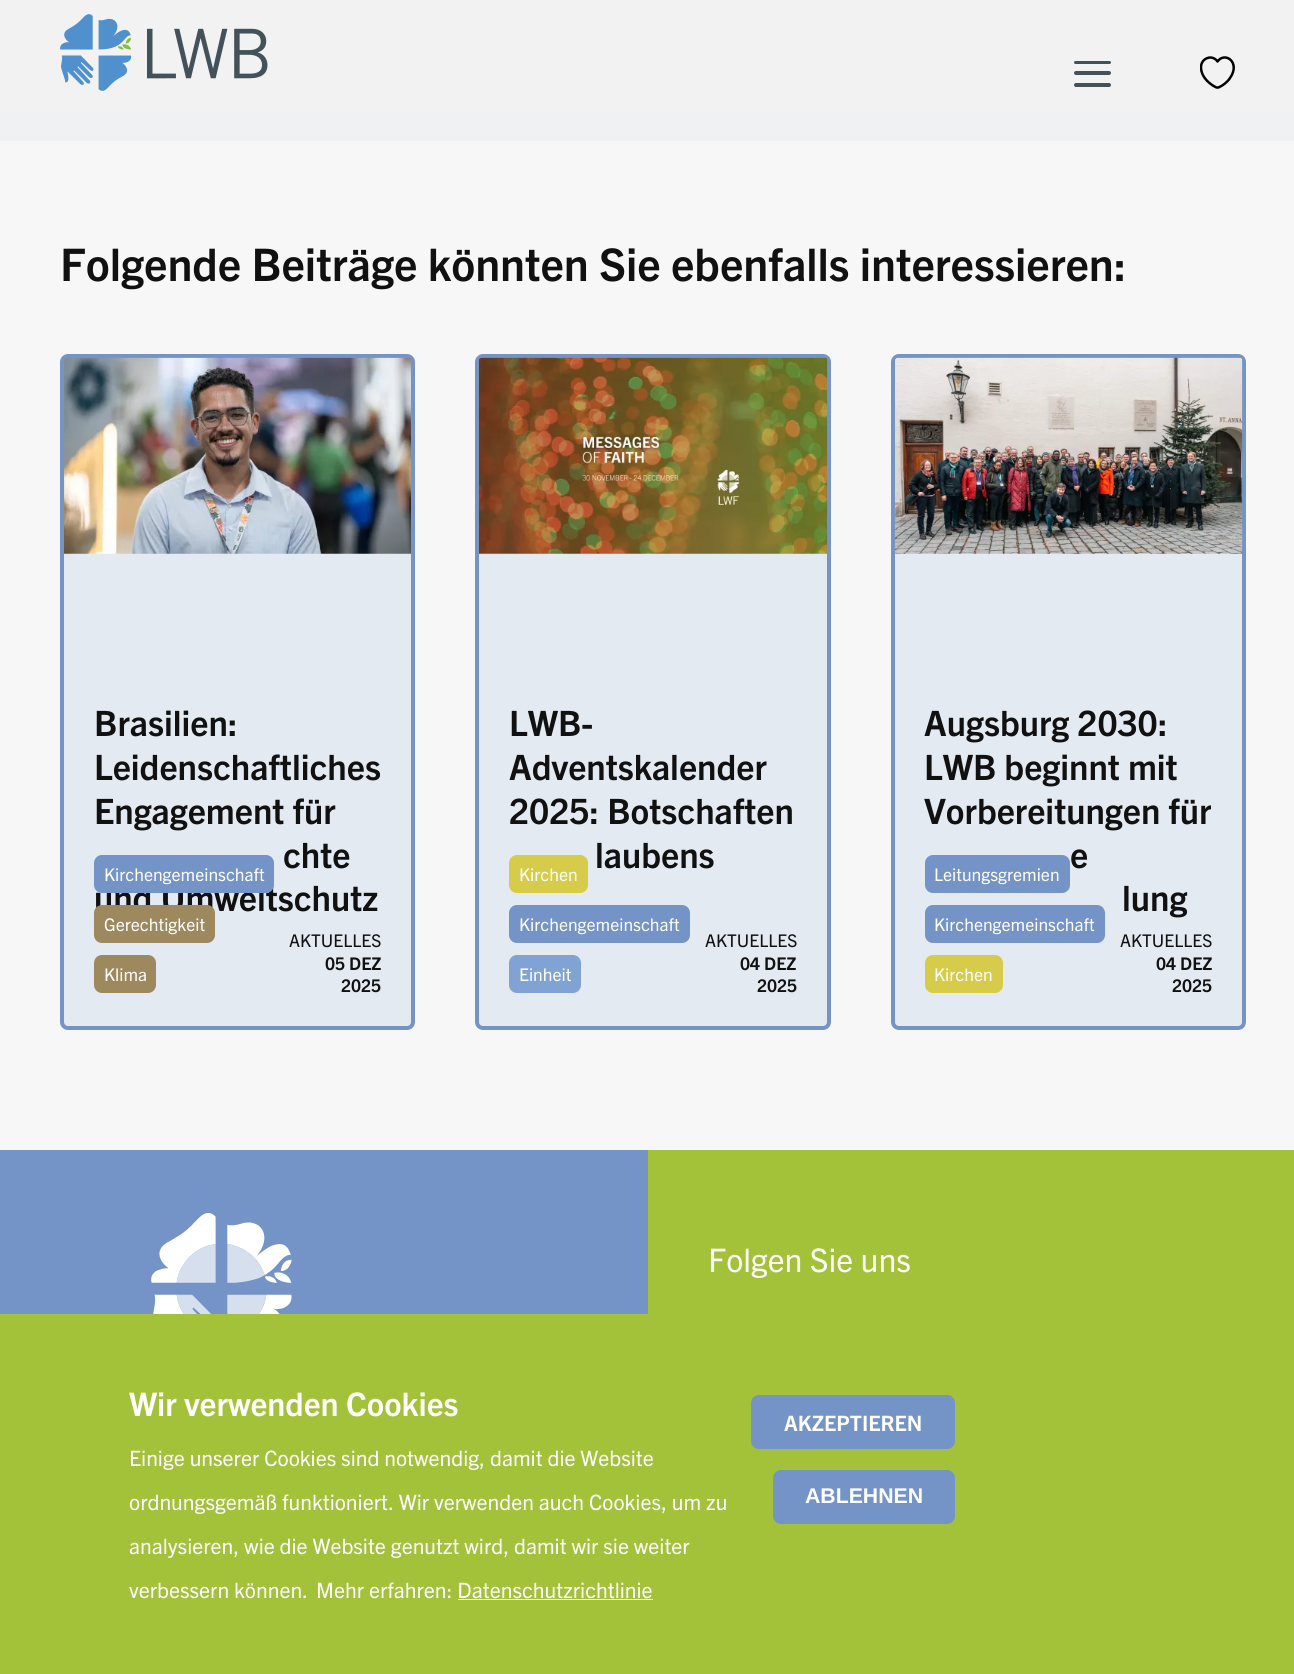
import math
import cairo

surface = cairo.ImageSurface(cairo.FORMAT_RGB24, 1294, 1674)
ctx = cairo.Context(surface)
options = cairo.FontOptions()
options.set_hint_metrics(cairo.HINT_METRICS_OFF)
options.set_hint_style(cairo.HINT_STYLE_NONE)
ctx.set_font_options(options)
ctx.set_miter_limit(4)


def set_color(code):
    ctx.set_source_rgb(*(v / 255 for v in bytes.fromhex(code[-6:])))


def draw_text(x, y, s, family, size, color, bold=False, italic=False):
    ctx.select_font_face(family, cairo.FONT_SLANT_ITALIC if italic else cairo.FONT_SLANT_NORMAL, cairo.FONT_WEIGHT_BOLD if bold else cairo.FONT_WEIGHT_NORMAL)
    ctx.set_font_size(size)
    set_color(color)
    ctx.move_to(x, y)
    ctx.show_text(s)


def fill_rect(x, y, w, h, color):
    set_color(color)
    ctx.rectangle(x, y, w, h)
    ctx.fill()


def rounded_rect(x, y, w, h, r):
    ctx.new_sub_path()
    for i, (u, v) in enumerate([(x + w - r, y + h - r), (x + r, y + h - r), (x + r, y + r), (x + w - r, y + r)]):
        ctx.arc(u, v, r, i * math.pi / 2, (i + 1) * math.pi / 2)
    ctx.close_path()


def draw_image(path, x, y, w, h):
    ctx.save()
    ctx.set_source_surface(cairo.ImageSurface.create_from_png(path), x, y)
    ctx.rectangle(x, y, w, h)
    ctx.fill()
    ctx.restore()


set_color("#eff1f3")
ctx.paint()
fill_rect(0, 0, 1294, 111, "#f2f2f2")
draw_image("assets/img1.png", 60, 14, 208, 77)
set_color("#455158")
rounded_rect(1074, 61, 37, 3, 1.5)
ctx.fill()
rounded_rect(1074, 71, 37, 4, 2)
ctx.fill()
rounded_rect(1074, 83, 37, 4, 2)
ctx.fill()
ctx.save()
ctx.rectangle(1200, 56, 35, 33)
ctx.clip()
ctx.new_path()
ctx.move_to(1218.5, 87.5)
ctx.curve_to(1218, 87.5, 1217, 87.5, 1216.5, 87.5)
ctx.curve_to(1212, 85.5, 1201, 78.5, 1201, 67)
ctx.curve_to(1201, 61.5, 1205.5, 57.5, 1210.5, 57.5)
ctx.curve_to(1213, 57.5, 1216, 59, 1217.5, 61.5)
ctx.curve_to(1225, 51, 1241, 62.5, 1230, 78)
ctx.curve_to(1227.5, 82, 1223, 85.5, 1218.5, 87.5)
ctx.close_path()
set_color("#000000")
ctx.set_line_width(2.5)
ctx.set_line_cap(cairo.LINE_CAP_ROUND)
ctx.set_line_join(cairo.LINE_JOIN_ROUND)
ctx.stroke()
ctx.restore()
fill_rect(0, 141, 1294, 1009, "#f7f7f7")
draw_text(60, 281, "Folgende Beiträge könnten Sie ebenfalls interessieren:", "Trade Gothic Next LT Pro", 45, "#111111", bold=True)
set_color("#e4eaf2")
rounded_rect(62, 356, 351, 672, 6)
ctx.fill_preserve()
set_color("#7493c7")
ctx.set_line_width(4)
ctx.stroke()
draw_image("assets/img2.png", 64, 357, 347, 197)
draw_text(94, 736, "Brasilien:", "Trade Gothic Next LT Pro", 35, "#111111", bold=True)
draw_text(94, 780, "Leidenschaftliches", "Trade Gothic Next LT Pro", 35, "#111111", bold=True)
draw_text(94, 824, "Engagement für", "Trade Gothic Next LT Pro", 35, "#111111", bold=True)
draw_text(283, 868, "chte", "Trade Gothic Next LT Pro", 35, "#111111", bold=True)
draw_text(94, 911, "und Umweltschutz", "Trade Gothic Next LT Pro", 35, "#111111", bold=True)
set_color("#7493c7")
rounded_rect(94, 855, 180, 38, 8)
ctx.fill()
draw_text(104, 881, "Kirchengemeinschaft", "Trade Gothic Next LT Pro", 17.5, "#ffffff")
set_color("#9d895d")
rounded_rect(94, 905, 121, 38, 8)
ctx.fill()
draw_text(104, 931, "Gerechtigkeit", "Trade Gothic Next LT Pro", 17.5, "#ffffff")
set_color("#9d895d")
rounded_rect(94, 955, 62, 38, 8)
ctx.fill()
draw_text(104, 981, "Klima", "Trade Gothic Next LT Pro", 17.5, "#ffffff")
draw_text(289, 947, "AKTUELLES", "Trade Gothic Next LT Pro", 17.5, "#111111")
draw_text(325, 970, "05 DEZ", "Trade Gothic Next LT Pro", 17.5, "#111111", bold=True)
draw_text(341, 992, "2025", "Trade Gothic Next LT Pro", 17.5, "#111111", bold=True)
set_color("#e4eaf2")
rounded_rect(477, 356, 352, 672, 6)
ctx.fill_preserve()
set_color("#7493c7")
ctx.stroke()
draw_image("assets/img3.png", 479, 357, 349, 197)
draw_text(509, 736, "LWB-", "Trade Gothic Next LT Pro", 35, "#111111", bold=True)
draw_text(509, 780, "Adventskalender", "Trade Gothic Next LT Pro", 35, "#111111", bold=True)
draw_text(509, 824, "2025: Botschaften", "Trade Gothic Next LT Pro", 35, "#111111", bold=True)
draw_text(595, 868, "laubens", "Trade Gothic Next LT Pro", 35, "#111111", bold=True)
set_color("#d7cb4a")
rounded_rect(509, 855, 79, 38, 8)
ctx.fill()
draw_text(519, 881, "Kirchen", "Trade Gothic Next LT Pro", 17.5, "#ffffff")
set_color("#7493c7")
rounded_rect(509, 905, 181, 38, 8)
ctx.fill()
draw_text(519, 931, "Kirchengemeinschaft", "Trade Gothic Next LT Pro", 17.5, "#ffffff")
set_color("#80a3d3")
rounded_rect(509, 955, 72, 38, 8)
ctx.fill()
draw_text(519, 981, "Einheit", "Trade Gothic Next LT Pro", 17.5, "#ffffff")
draw_text(705, 947, "AKTUELLES", "Trade Gothic Next LT Pro", 17.5, "#111111")
draw_text(740, 970, "04 DEZ", "Trade Gothic Next LT Pro", 17.5, "#111111", bold=True)
draw_text(757, 992, "2025", "Trade Gothic Next LT Pro", 17.5, "#111111", bold=True)
set_color("#e4eaf2")
rounded_rect(893, 356, 351, 672, 6)
ctx.fill_preserve()
set_color("#7493c7")
ctx.stroke()
draw_image("assets/img4.png", 895, 357, 348, 197)
draw_text(924, 736, "Augsburg 2030:", "Trade Gothic Next LT Pro", 35, "#111111", bold=True)
draw_text(924, 780, "LWB beginnt mit", "Trade Gothic Next LT Pro", 35, "#111111", bold=True)
draw_text(924, 824, "Vorbereitungen für", "Trade Gothic Next LT Pro", 35, "#111111", bold=True)
draw_text(1070, 868, "e", "Trade Gothic Next LT Pro", 35, "#111111", bold=True)
draw_text(1122, 911, "lung", "Trade Gothic Next LT Pro", 35, "#111111", bold=True)
set_color("#7493c7")
rounded_rect(925, 855, 145, 38, 8)
ctx.fill()
draw_text(934, 881, "Leitungsgremien", "Trade Gothic Next LT Pro", 17.5, "#ffffff")
set_color("#7493c7")
rounded_rect(925, 905, 180, 38, 8)
ctx.fill()
draw_text(934, 931, "Kirchengemeinschaft", "Trade Gothic Next LT Pro", 17.5, "#ffffff")
set_color("#d7cb4a")
rounded_rect(925, 955, 78, 38, 8)
ctx.fill()
draw_text(934, 981, "Kirchen", "Trade Gothic Next LT Pro", 17.5, "#ffffff")
draw_text(1120, 947, "AKTUELLES", "Trade Gothic Next LT Pro", 17.5, "#111111")
draw_text(1156, 970, "04 DEZ", "Trade Gothic Next LT Pro", 17.5, "#111111", bold=True)
draw_text(1172, 992, "2025", "Trade Gothic Next LT Pro", 17.5, "#111111", bold=True)
fill_rect(0, 1150, 648, 164, "#7493c7")
draw_image("assets/img5.png", 151, 1213, 141, 101)
fill_rect(648, 1150, 646, 164, "#a3c139")
draw_text(708, 1272, "Folgen Sie uns", "Trade Gothic Next LT Pro", 32.5, "#ffffff")
fill_rect(0, 1314, 1294, 360, "#a3c139")
draw_text(129, 1416, "Wir verwenden Cookies", "Trade Gothic Next LT Pro", 32.5, "#ffffff", bold=True)
draw_text(129, 1466, "Einige unserer Cookies sind notwendig, damit die Website", "Trade Gothic Next LT Pro", 21.25, "#ffffff")
draw_text(129, 1510, "ordnungsgemäß funktioniert. Wir verwenden auch Cookies, um zu", "Trade Gothic Next LT Pro", 21.25, "#ffffff")
draw_text(129, 1554, "analysieren, wie die Website genutzt wird, damit wir sie weiter", "Trade Gothic Next LT Pro", 21.25, "#ffffff")
draw_text(129, 1598, "verbessern können.", "Trade Gothic Next LT Pro", 21.25, "#ffffff")
draw_text(316, 1598, "Mehr erfahren: Datenschutzrichtlinie", "Trade Gothic Next LT Pro", 21.25, "#ffffff")
fill_rect(458, 1599, 195, 1, "#ffffff")
set_color("#7493c7")
rounded_rect(752.5, 1396.5, 201, 51, 6.5)
ctx.fill_preserve()
ctx.set_line_width(3)
ctx.stroke()
draw_text(784, 1431, "AKZEPTIEREN", "Trade Gothic Next LT Pro", 21.25, "#ffffff", bold=True)
set_color("#7493c7")
rounded_rect(774.5, 1471.5, 179, 51, 6.5)
ctx.fill_preserve()
ctx.stroke()
draw_text(805, 1503, "ABLEHNEN", "Liberation Sans", 21.25, "#ffffff", bold=True)
surface.write_to_png("output.png")
